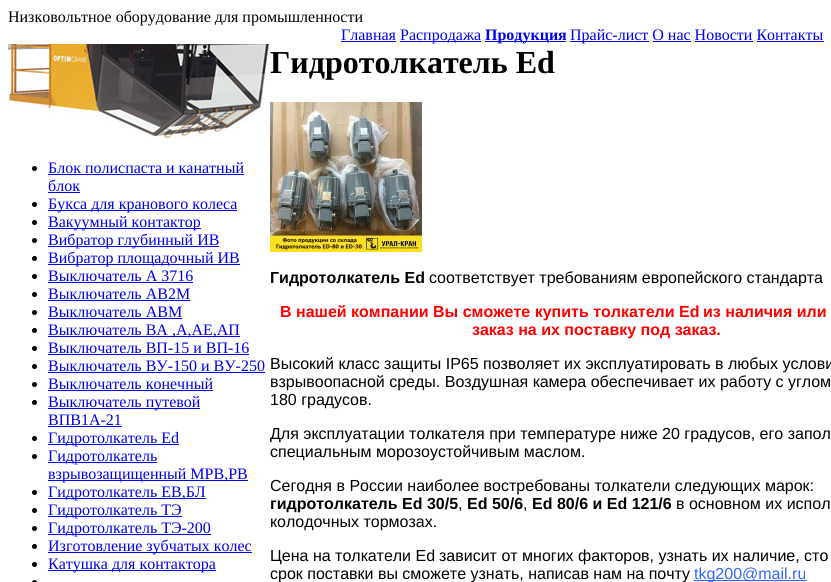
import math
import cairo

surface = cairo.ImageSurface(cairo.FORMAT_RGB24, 831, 582)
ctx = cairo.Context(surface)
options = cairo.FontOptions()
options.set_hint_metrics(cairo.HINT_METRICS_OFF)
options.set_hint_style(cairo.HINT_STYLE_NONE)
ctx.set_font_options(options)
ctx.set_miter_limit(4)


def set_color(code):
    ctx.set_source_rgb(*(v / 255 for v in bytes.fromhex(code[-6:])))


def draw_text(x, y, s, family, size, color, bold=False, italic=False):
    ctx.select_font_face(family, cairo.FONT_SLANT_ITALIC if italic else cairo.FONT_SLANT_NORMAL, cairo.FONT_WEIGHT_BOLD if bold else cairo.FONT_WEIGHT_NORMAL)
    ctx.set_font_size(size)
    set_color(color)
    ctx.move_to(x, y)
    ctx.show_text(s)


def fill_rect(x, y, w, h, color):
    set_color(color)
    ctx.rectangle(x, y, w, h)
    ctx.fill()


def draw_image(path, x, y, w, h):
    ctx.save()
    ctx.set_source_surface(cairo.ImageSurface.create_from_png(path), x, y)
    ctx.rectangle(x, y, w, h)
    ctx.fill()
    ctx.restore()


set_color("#ffffff")
ctx.paint()
draw_text(8, 22, "Низковольтное оборудование для промышленности", "Liberation Serif", 16, "#000000")
draw_text(341, 40, "Главная", "Liberation Serif", 16, "#0000ee")
fill_rect(341, 41, 55, 1, "#0000ee")
fill_rect(400, 41, 81, 1, "#0000ee")
draw_text(400, 40, "Распродажа", "Liberation Serif", 16, "#0000ee")
fill_rect(485, 41, 81, 1, "#0000ee")
draw_text(485, 40, "Продукция", "Liberation Serif", 16, "#0000ee", bold=True)
fill_rect(570, 41, 79, 1, "#0000ee")
draw_text(570, 40, "Прайс-лист О нас Новости Контакты", "Liberation Serif", 16, "#0000ee")
fill_rect(653, 41, 38, 1, "#0000ee")
fill_rect(695, 41, 58, 1, "#0000ee")
fill_rect(757, 41, 67, 1, "#0000ee")
draw_image("assets/img1.png", 8, 44, 262, 96)
set_color("#000000")
ctx.arc(34.5, 168.5, 2.5, 0, 2 * math.pi)
ctx.fill()
draw_text(48, 173, "Блок полиспаста и канатный", "Liberation Serif", 16, "#0000ee")
fill_rect(48, 174, 196, 1, "#0000ee")
draw_text(48, 191, "блок", "Liberation Serif", 16, "#0000ee")
fill_rect(48, 192, 32, 1, "#0000ee")
set_color("#000000")
ctx.new_path()
ctx.arc(34.5, 204.5, 2.5, 0, 2 * math.pi)
ctx.fill()
fill_rect(48, 210, 189, 1, "#0000ee")
draw_text(48, 209, "Букса для кранового колеса", "Liberation Serif", 16, "#0000ee")
set_color("#000000")
ctx.new_path()
ctx.arc(34.5, 222.5, 2.5, 0, 2 * math.pi)
ctx.fill()
fill_rect(48, 228, 153, 1, "#0000ee")
draw_text(48, 227, "Вакуумный контактор", "Liberation Serif", 16, "#0000ee")
set_color("#000000")
ctx.new_path()
ctx.arc(34.5, 240.5, 2.5, 0, 2 * math.pi)
ctx.fill()
fill_rect(48, 246, 171, 1, "#0000ee")
draw_text(48, 245, "Вибратор глубинный ИВ", "Liberation Serif", 16, "#0000ee")
set_color("#000000")
ctx.new_path()
ctx.arc(34.5, 258.5, 2.5, 0, 2 * math.pi)
ctx.fill()
fill_rect(48, 264, 192, 1, "#0000ee")
draw_text(48, 263, "Вибратор площадочный ИВ", "Liberation Serif", 16, "#0000ee")
set_color("#000000")
ctx.new_path()
ctx.arc(34.5, 276.5, 2.5, 0, 2 * math.pi)
ctx.fill()
draw_text(48, 281, "Выключатель А 3716", "Liberation Serif", 16, "#0000ee")
fill_rect(48, 282, 145, 1, "#0000ee")
set_color("#000000")
ctx.new_path()
ctx.arc(34.5, 294.5, 2.5, 0, 2 * math.pi)
ctx.fill()
draw_text(48, 299, "Выключатель АВ2М", "Liberation Serif", 16, "#0000ee")
fill_rect(48, 300, 142, 1, "#0000ee")
set_color("#000000")
ctx.new_path()
ctx.arc(34.5, 312.5, 2.5, 0, 2 * math.pi)
ctx.fill()
draw_text(48, 317, "Выключатель АВМ", "Liberation Serif", 16, "#0000ee")
fill_rect(48, 318, 134, 1, "#0000ee")
set_color("#000000")
ctx.new_path()
ctx.arc(34.5, 330.5, 2.5, 0, 2 * math.pi)
ctx.fill()
fill_rect(48, 336, 192, 1, "#0000ee")
draw_text(48, 335, "Выключатель ВА ,А,АЕ,АП", "Liberation Serif", 16, "#0000ee")
set_color("#000000")
ctx.new_path()
ctx.arc(34.5, 348.5, 2.5, 0, 2 * math.pi)
ctx.fill()
draw_text(48, 353, "Выключатель ВП-15 и ВП-16", "Liberation Serif", 16, "#0000ee")
fill_rect(48, 354, 201, 1, "#0000ee")
set_color("#000000")
ctx.new_path()
ctx.arc(34.5, 366.5, 2.5, 0, 2 * math.pi)
ctx.fill()
draw_text(48, 371, "Выключатель ВУ-150 и ВУ-250", "Liberation Serif", 16, "#0000ee")
fill_rect(48, 372, 217, 1, "#0000ee")
set_color("#000000")
ctx.new_path()
ctx.arc(34.5, 384.5, 2.5, 0, 2 * math.pi)
ctx.fill()
draw_text(48, 389, "Выключатель конечный", "Liberation Serif", 16, "#0000ee")
fill_rect(48, 390, 165, 1, "#0000ee")
set_color("#000000")
ctx.new_path()
ctx.arc(34.5, 402.5, 2.5, 0, 2 * math.pi)
ctx.fill()
fill_rect(48, 408, 152, 1, "#0000ee")
draw_text(48, 407, "Выключатель путевой", "Liberation Serif", 16, "#0000ee")
draw_text(48, 425, "ВПВ1А-21", "Liberation Serif", 16, "#0000ee")
fill_rect(48, 426, 74, 1, "#0000ee")
set_color("#000000")
ctx.new_path()
ctx.arc(34.5, 438.5, 2.5, 0, 2 * math.pi)
ctx.fill()
fill_rect(48, 444, 131, 1, "#0000ee")
draw_text(48, 443, "Гидротолкатель Ed", "Liberation Serif", 16, "#0000ee")
set_color("#000000")
ctx.new_path()
ctx.arc(34.5, 456.5, 2.5, 0, 2 * math.pi)
ctx.fill()
fill_rect(48, 462, 109, 1, "#0000ee")
draw_text(48, 461, "Гидротолкатель", "Liberation Serif", 16, "#0000ee")
fill_rect(48, 480, 200, 1, "#0000ee")
draw_text(48, 479, "взрывозащищенный МРВ,РВ", "Liberation Serif", 16, "#0000ee")
set_color("#000000")
ctx.new_path()
ctx.arc(34.5, 492.5, 2.5, 0, 2 * math.pi)
ctx.fill()
fill_rect(48, 498, 158, 1, "#0000ee")
draw_text(48, 497, "Гидротолкатель ЕВ,БЛ", "Liberation Serif", 16, "#0000ee")
set_color("#000000")
ctx.new_path()
ctx.arc(34.5, 510.5, 2.5, 0, 2 * math.pi)
ctx.fill()
fill_rect(48, 516, 134, 1, "#0000ee")
draw_text(48, 515, "Гидротолкатель ТЭ", "Liberation Serif", 16, "#0000ee")
set_color("#000000")
ctx.new_path()
ctx.arc(34.5, 528.5, 2.5, 0, 2 * math.pi)
ctx.fill()
fill_rect(48, 534, 163, 1, "#0000ee")
draw_text(48, 533, "Гидротолкатель ТЭ-200", "Liberation Serif", 16, "#0000ee")
set_color("#000000")
ctx.new_path()
ctx.arc(34.5, 546.5, 2.5, 0, 2 * math.pi)
ctx.fill()
fill_rect(48, 552, 204, 1, "#0000ee")
draw_text(48, 551, "Изготовление зубчатых колес", "Liberation Serif", 16, "#0000ee")
set_color("#000000")
ctx.new_path()
ctx.arc(34.5, 564.5, 2.5, 0, 2 * math.pi)
ctx.fill()
fill_rect(48, 570, 168, 1, "#0000ee")
draw_text(48, 569, "Катушка для контактора", "Liberation Serif", 16, "#0000ee")
set_color("#000000")
ctx.new_path()
ctx.arc(34.5, 582.5, 2.5, 0, 2 * math.pi)
ctx.fill()
draw_text(270, 73, "Гидротолкатель Ed", "Liberation Serif", 32, "#000000", bold=True)
draw_image("assets/img2.png", 270, 102, 152, 150)
draw_text(270, 283, "Гидротолкатель Ed", "Liberation Sans", 16, "#000000", bold=True)
draw_text(429, 283, "соответствует требованиям европейского стандарта", "Liberation Sans", 16, "#000000")
draw_text(280, 317, "В нашей компании Вы сможете купить толкатели Ed", "Liberation Sans", 16, "#ff0000", bold=True)
draw_text(703, 317, "из наличия или", "Liberation Sans", 16, "#ff0000", bold=True)
draw_text(472, 335, "заказ на их поставку под заказ.", "Liberation Sans", 16, "#ff0000", bold=True)
draw_text(270, 369, "Высокий класс защиты IP65 позволяет их эксплуатировать в любых услови", "Liberation Sans", 16, "#000000")
draw_text(270, 387, "взрывоопасной среды. Воздушная камера обеспечивает их работу с углом", "Liberation Sans", 16, "#000000")
draw_text(270, 405, "180 градусов.", "Liberation Sans", 16, "#000000")
draw_text(270, 439, "Для эксплуатации толкателя при температуре ниже 20 градусов, его запол", "Liberation Sans", 16, "#000000")
draw_text(270, 457, "специальным морозоустойчивым маслом.", "Liberation Sans", 16, "#000000")
draw_text(270, 491, "Сегодня в России наиболее востребованы толкатели следующих марок:", "Liberation Sans", 16, "#000000")
draw_text(270, 509, "гидротолкатель Ed 30/5", "Liberation Sans", 16, "#000000", bold=True)
draw_text(458, 509, ",", "Liberation Sans", 16, "#000000")
draw_text(467, 509, "Ed 50/6", "Liberation Sans", 16, "#000000", bold=True)
draw_text(523, 509, ",", "Liberation Sans", 16, "#000000")
draw_text(532, 509, "Ed 80/6 и Ed 121/6", "Liberation Sans", 16, "#000000", bold=True)
draw_text(676, 509, "в основном их испол", "Liberation Sans", 16, "#000000")
draw_text(270, 527, "колодочных тормозах.", "Liberation Sans", 16, "#000000")
draw_text(270, 561, "Цена на толкатели Ed", "Liberation Sans", 16, "#000000")
draw_text(439, 561, "зависит от многих факторов, узнать их наличие, сто", "Liberation Sans", 16, "#000000")
draw_text(270, 579, "срок поставки вы сможете узнать, написав нам на почту", "Liberation Sans", 16, "#000000")
fill_rect(694, 580, 113, 1, "#3366ff")
draw_text(694, 579, "tkg200@mail.ru", "Liberation Sans", 16, "#3366ff")
surface.write_to_png("output.png")
